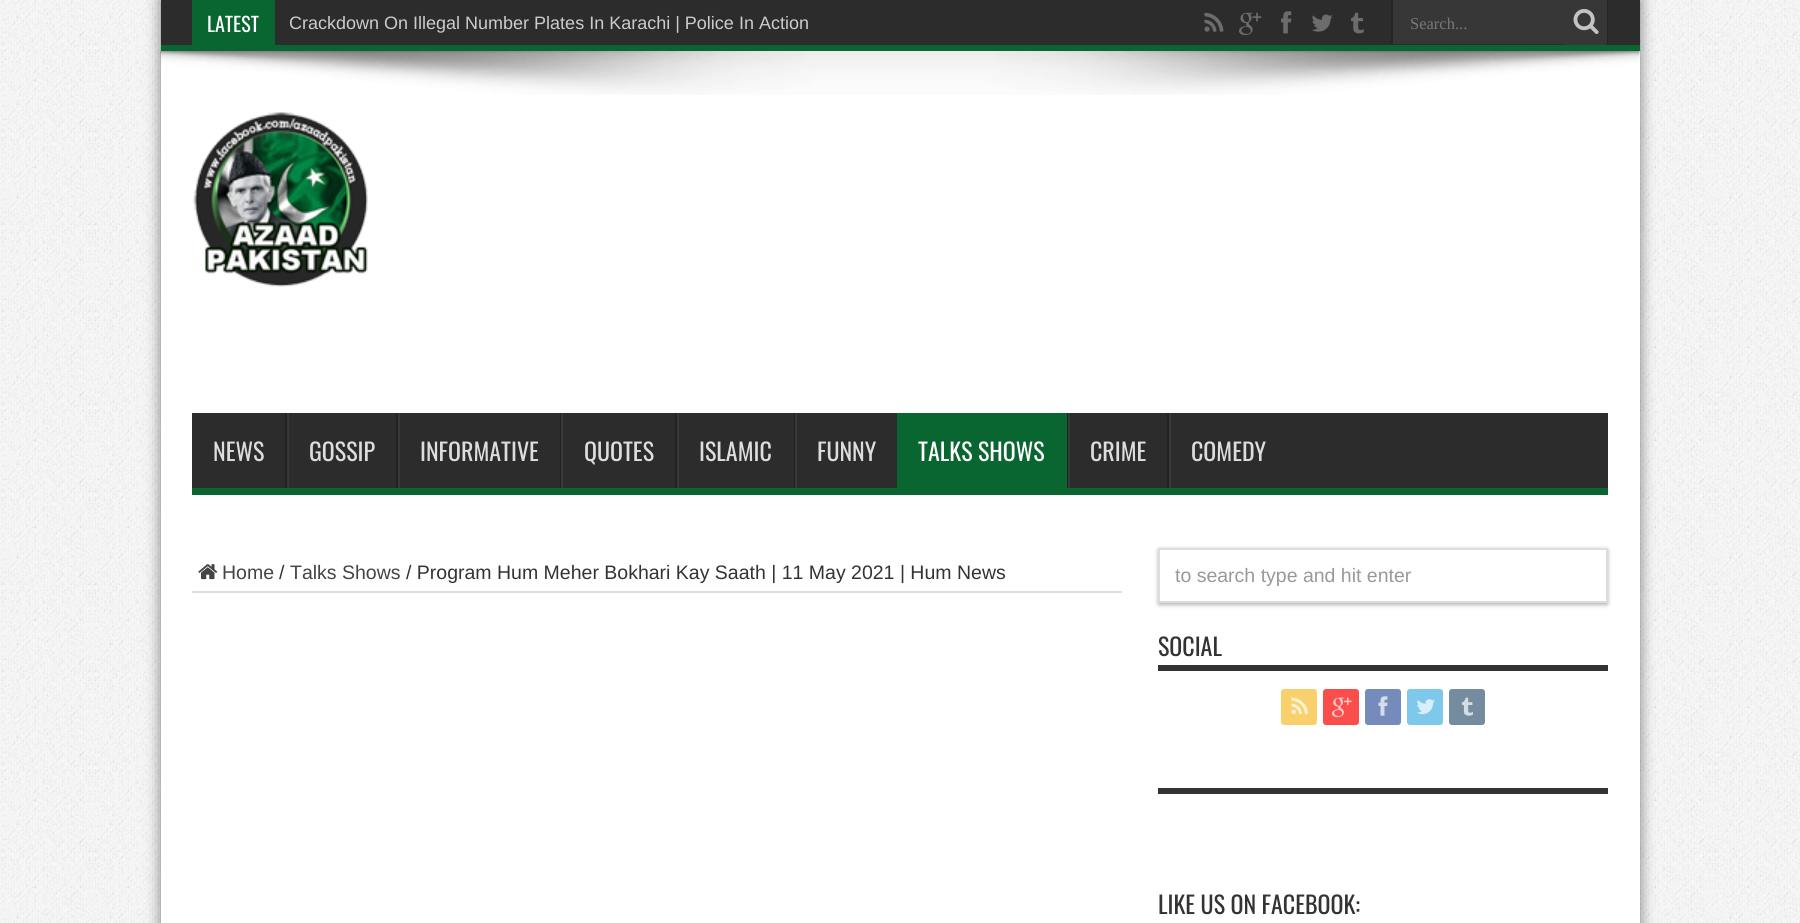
import math
import cairo

surface = cairo.ImageSurface(cairo.FORMAT_RGB24, 1800, 923)
ctx = cairo.Context(surface)
options = cairo.FontOptions()
options.set_hint_metrics(cairo.HINT_METRICS_OFF)
options.set_hint_style(cairo.HINT_STYLE_NONE)
ctx.set_font_options(options)
ctx.set_miter_limit(4)


def set_color(code):
    ctx.set_source_rgb(*(v / 255 for v in bytes.fromhex(code[-6:])))


def draw_text(x, y, s, family, size, color, bold=False, italic=False):
    ctx.select_font_face(family, cairo.FONT_SLANT_ITALIC if italic else cairo.FONT_SLANT_NORMAL, cairo.FONT_WEIGHT_BOLD if bold else cairo.FONT_WEIGHT_NORMAL)
    ctx.set_font_size(size)
    set_color(color)
    ctx.move_to(x, y)
    ctx.show_text(s)


def fill_rect(x, y, w, h, color):
    set_color(color)
    ctx.rectangle(x, y, w, h)
    ctx.fill()


def rounded_rect(x, y, w, h, r):
    ctx.new_sub_path()
    for i, (u, v) in enumerate([(x + w - r, y + h - r), (x + r, y + h - r), (x + r, y + r), (x + w - r, y + r)]):
        ctx.arc(u, v, r, i * math.pi / 2, (i + 1) * math.pi / 2)
    ctx.close_path()


def draw_shadow(x, y, w, h, r, blur, alpha):
    ctx.push_group_with_content(cairo.CONTENT_ALPHA)
    ctx.set_operator(cairo.OPERATOR_SOURCE)
    for i in range(15, -16, -2):
        e = blur * i / 6
        if min(w, h) + 2 * e > 0:
            ctx.set_source_rgba(0, 0, 0, alpha * math.erfc((i - 1) / 8.5) / 2)
            rounded_rect(x - e, y - e, w + 2 * e, h + 2 * e, max(0, min(r + e + blur * .6, min(w, h) / 2 + e)))
            ctx.fill()
    ctx.mask(ctx.pop_group())


def draw_image(path, x, y, w, h):
    ctx.save()
    ctx.set_source_surface(cairo.ImageSurface.create_from_png(path), x, y)
    ctx.rectangle(x, y, w, h)
    ctx.fill()
    ctx.restore()


set_color("#ffffff")
ctx.paint()
draw_image("assets/img1.png", 0, 0, 1800, 923)
set_color("#000000")
draw_shadow(161, 0, 1479, 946, 0, 7.5, 0.5)
fill_rect(161, 51, 1479, 872, "#ffffff")
fill_rect(161, 0, 1479, 45, "#2c2c2c")
fill_rect(161, 45, 1479, 6, "#096630")
fill_rect(192, 0, 83, 45, "#096630")
draw_text(207, 32, "LATEST", "Oswald", 20, "#ffffff")
draw_text(289, 29, "Crackdown On Illegal Number Plates In Karachi | Police In Action", "Liberation Sans", 18, "#cccccc")
draw_image("assets/img2.png", 1204, 12, 20, 20)
draw_image("assets/img3.png", 1239, 12, 23, 24)
draw_image("assets/img4.png", 1281, 11, 11, 23)
draw_image("assets/img5.png", 1312, 14, 21, 18)
draw_image("assets/img6.png", 1351, 12, 13, 22)
fill_rect(1393, 0, 170, 44, "#373737")
fill_rect(1391, 0, 2, 44, "#252525")
draw_text(1410, 29, "Search...", "Liberation Serif", 16.5, "#787878")
fill_rect(1563, 0, 44, 45, "#373737")
fill_rect(1607, 0, 1, 45, "#252525")
draw_image("assets/img7.png", 1573, 9, 26, 25)
draw_image("assets/img8.png", 160, 51, 1480, 44)
draw_image("assets/img9.png", 193, 112, 175, 175)
fill_rect(192, 413, 1416, 75, "#2c2c2c")
fill_rect(192, 488, 1416, 7, "#096630")
draw_text(213, 461, "NEWS", "Oswald", 24, "#dddddd")
fill_rect(285, 413, 2, 75, "#222222")
fill_rect(287, 413, 2, 75, "#383838")
draw_text(309, 461, "GOSSIP", "Oswald", 24, "#dddddd")
fill_rect(396, 413, 2, 75, "#222222")
fill_rect(398, 413, 2, 75, "#383838")
draw_text(420, 461, "INFORMATIVE", "Oswald", 24, "#dddddd")
fill_rect(560, 413, 1, 75, "#222222")
fill_rect(561, 413, 2, 75, "#383838")
draw_text(584, 461, "QUOTES", "Oswald", 24, "#dddddd")
fill_rect(675, 413, 2, 75, "#222222")
fill_rect(677, 413, 2, 75, "#383838")
draw_text(699, 461, "ISLAMIC", "Oswald", 24, "#dddddd")
fill_rect(794, 413, 1, 75, "#222222")
fill_rect(795, 413, 2, 75, "#383838")
draw_text(817, 461, "FUNNY", "Oswald", 24, "#dddddd")
fill_rect(897, 413, 170, 75, "#096630")
draw_text(918, 461, "TALKS SHOWS", "Oswald", 24, "#ffffff")
fill_rect(1067, 413, 1, 75, "#222222")
fill_rect(1068, 413, 2, 75, "#383838")
draw_text(1090, 461, "CRIME", "Oswald", 24, "#dddddd")
fill_rect(1167, 413, 2, 75, "#222222")
fill_rect(1169, 413, 2, 75, "#383838")
draw_text(1191, 461, "COMEDY", "Oswald", 24, "#dddddd")
fill_rect(192, 591, 930, 2, "#dddddd")
draw_image("assets/img10.png", 198, 564, 20, 16)
draw_text(222, 579, "Home", "Liberation Sans", 19.5, "#444444")
draw_text(279, 579, "/", "Liberation Sans", 19.5, "#333333")
draw_text(290, 579, "Talks Shows", "Liberation Sans", 19.5, "#444444")
draw_text(406, 579, "/ Program Hum Meher Bokhari Kay Saath | 11 May 2021 | Hum News", "Liberation Sans", 19.5, "#333333")
set_color("#b5b5b5")
draw_shadow(1158, 549, 450, 56, 1.5, 2, 1)
set_color("#ffffff")
rounded_rect(1159, 549, 448, 53, 0.5)
ctx.fill_preserve()
set_color("#dddddd")
ctx.stroke()
draw_text(1175, 582, "to search type and hit enter", "Liberation Sans", 19.5, "#999999")
fill_rect(1158, 665, 450, 6, "#333333")
draw_text(1158, 656, "SOCIAL", "Oswald", 24, "#333333")
set_color("#fad06d")
rounded_rect(1281, 689, 36, 36, 3)
ctx.fill()
draw_image("assets/img11.png", 1291, 697, 17, 18)
set_color("#fc4d4d")
rounded_rect(1323, 689, 36, 36, 3)
ctx.fill()
draw_image("assets/img12.png", 1332, 697, 20, 21)
set_color("#748bbc")
rounded_rect(1365, 689, 36, 36, 3)
ctx.fill()
draw_image("assets/img13.png", 1378, 696, 10, 20)
set_color("#7dc8eb")
rounded_rect(1407, 689, 36, 36, 3)
ctx.fill()
draw_image("assets/img14.png", 1416, 699, 19, 16)
set_color("#748c9e")
rounded_rect(1449, 689, 36, 36, 3)
ctx.fill()
draw_image("assets/img15.png", 1461, 697, 12, 19)
fill_rect(1158, 788, 450, 6, "#333333")
draw_text(1158, 914, "LIKE US ON FACEBOOK:", "Oswald", 24, "#333333")
surface.write_to_png("output.png")
